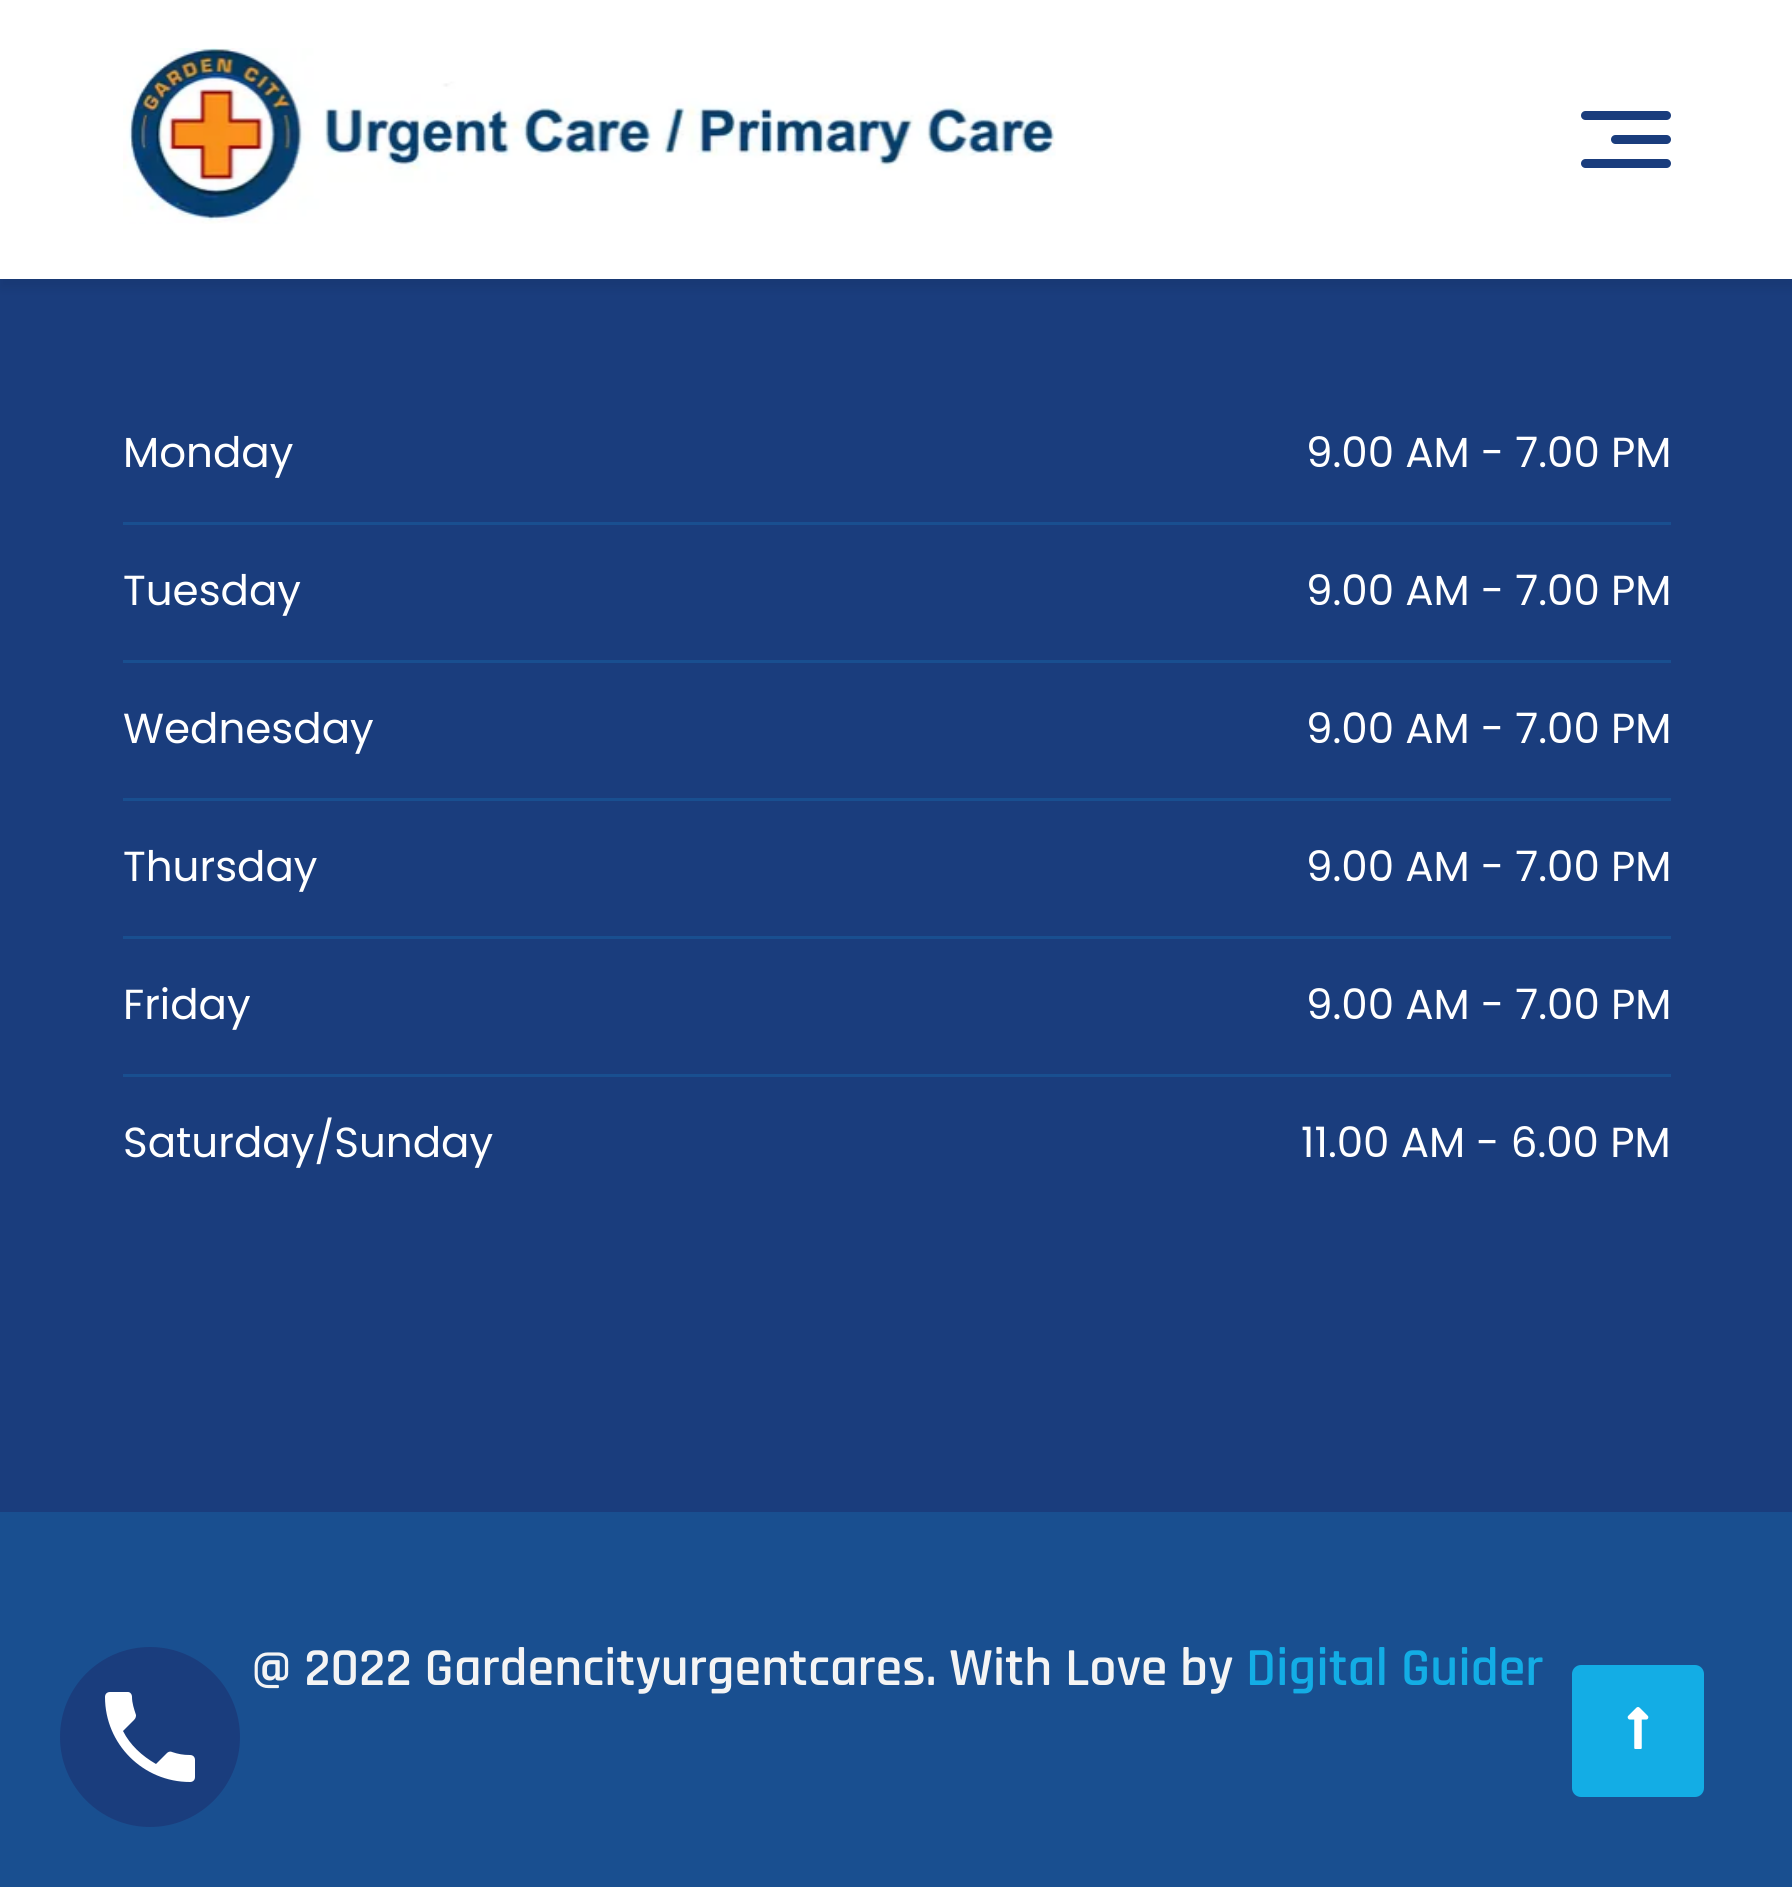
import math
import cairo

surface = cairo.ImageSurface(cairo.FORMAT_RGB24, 1792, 1887)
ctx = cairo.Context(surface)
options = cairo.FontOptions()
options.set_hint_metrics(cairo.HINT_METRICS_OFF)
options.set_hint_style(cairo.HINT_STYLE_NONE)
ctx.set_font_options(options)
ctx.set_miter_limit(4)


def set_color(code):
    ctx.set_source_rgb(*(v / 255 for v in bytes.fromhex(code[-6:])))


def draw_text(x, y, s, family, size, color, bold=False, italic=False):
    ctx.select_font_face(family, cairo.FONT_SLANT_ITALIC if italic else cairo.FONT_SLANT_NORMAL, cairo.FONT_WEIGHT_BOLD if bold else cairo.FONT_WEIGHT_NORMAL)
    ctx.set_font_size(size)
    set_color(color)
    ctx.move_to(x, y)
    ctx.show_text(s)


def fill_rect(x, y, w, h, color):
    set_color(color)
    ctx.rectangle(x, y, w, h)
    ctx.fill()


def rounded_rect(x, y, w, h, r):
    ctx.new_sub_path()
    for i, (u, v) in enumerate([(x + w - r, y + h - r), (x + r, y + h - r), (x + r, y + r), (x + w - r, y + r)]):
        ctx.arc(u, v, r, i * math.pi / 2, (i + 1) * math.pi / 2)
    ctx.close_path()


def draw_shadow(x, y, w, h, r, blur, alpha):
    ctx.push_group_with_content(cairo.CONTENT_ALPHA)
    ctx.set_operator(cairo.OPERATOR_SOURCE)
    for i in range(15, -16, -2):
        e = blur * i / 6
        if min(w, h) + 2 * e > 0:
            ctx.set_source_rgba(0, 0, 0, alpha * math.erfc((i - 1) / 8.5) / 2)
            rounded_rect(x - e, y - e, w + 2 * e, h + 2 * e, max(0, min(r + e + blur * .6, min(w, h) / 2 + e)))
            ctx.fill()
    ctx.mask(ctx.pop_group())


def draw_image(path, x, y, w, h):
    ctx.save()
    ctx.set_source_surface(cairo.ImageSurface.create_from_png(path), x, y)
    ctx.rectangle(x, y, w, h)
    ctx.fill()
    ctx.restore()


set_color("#1a3d7d")
ctx.paint()
set_color("#000000")
draw_shadow(0, 9, 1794, 279, 0, 6, 0.08)
fill_rect(0, 0, 1792, 279, "#ffffff")
draw_image("assets/img1.png", 123, 48, 933, 176)
set_color("#1a3d7d")
rounded_rect(1581, 111, 90, 9, 4.5)
ctx.fill()
rounded_rect(1611, 135, 60, 9, 4.5)
ctx.fill()
rounded_rect(1581, 159, 90, 9, 4.5)
ctx.fill()
fill_rect(123, 522, 1548, 3, "#194f90")
draw_text(123, 467, "Monday", "Poppins", 42, "#ffffff")
draw_text(1306, 467, "9.00 AM - 7.00 PM", "Poppins", 42, "#ffffff")
fill_rect(123, 660, 1548, 3, "#194f90")
draw_text(123, 605, "Tuesday", "Poppins", 42, "#ffffff")
draw_text(1306, 605, "9.00 AM - 7.00 PM", "Poppins", 42, "#ffffff")
fill_rect(123, 798, 1548, 3, "#194f90")
draw_text(123, 743, "Wednesday", "Poppins", 42, "#ffffff")
draw_text(1306, 743, "9.00 AM - 7.00 PM", "Poppins", 42, "#ffffff")
fill_rect(123, 936, 1548, 3, "#194f90")
draw_text(123, 881, "Thursday", "Poppins", 42, "#ffffff")
draw_text(1306, 881, "9.00 AM - 7.00 PM", "Poppins", 42, "#ffffff")
fill_rect(123, 1074, 1548, 3, "#194f90")
draw_text(123, 1019, "Friday", "Poppins", 42, "#ffffff")
draw_text(1306, 1019, "9.00 AM - 7.00 PM", "Poppins", 42, "#ffffff")
draw_text(123, 1157, "Saturday/Sunday", "Poppins", 42, "#ffffff")
draw_text(1301, 1157, "11.00 AM - 6.00 PM", "Poppins", 42, "#ffffff")
fill_rect(0, 1512, 1792, 375, "#194f90")
draw_text(251, 1685, "@ 2022 Gardencityurgentcares. With Love by", "Rajdhani SemiBold", 54, "#f4f4f4")
draw_text(1246, 1685, "Digital Guider", "Rajdhani SemiBold", 54, "#13ade5")
set_color("#1a3d7d")
ctx.new_path()
ctx.arc(150, 1737, 90, 0, 2 * math.pi)
ctx.fill()
set_color("#ffffff")
ctx.new_path()
ctx.move_to(123, 1731)
ctx.curve_to(130, 1745, 142, 1756, 156, 1764)
ctx.line_to(167, 1753)
ctx.curve_to(168, 1752, 170, 1751, 172, 1752)
ctx.curve_to(178, 1754, 183, 1755, 190, 1755)
ctx.curve_to(193, 1755, 195, 1757, 195, 1760)
ctx.line_to(195, 1777)
ctx.curve_to(195, 1780, 193, 1782, 190, 1782)
ctx.curve_to(143, 1782, 105, 1744, 105, 1697)
ctx.curve_to(105, 1694, 107, 1692, 110, 1692)
ctx.line_to(128, 1692)
ctx.curve_to(130, 1692, 132, 1694, 132, 1697)
ctx.curve_to(132, 1703, 134, 1709, 136, 1715)
ctx.curve_to(136, 1716, 136, 1718, 134, 1720)
ctx.close_path()
ctx.fill()
set_color("#13ade5")
rounded_rect(1573.5, 1666.5, 129, 129, 7.5)
ctx.fill_preserve()
ctx.set_line_width(3)
ctx.stroke()
draw_image("assets/img2.png", 1627, 1707, 22, 42)
surface.write_to_png("output.png")
